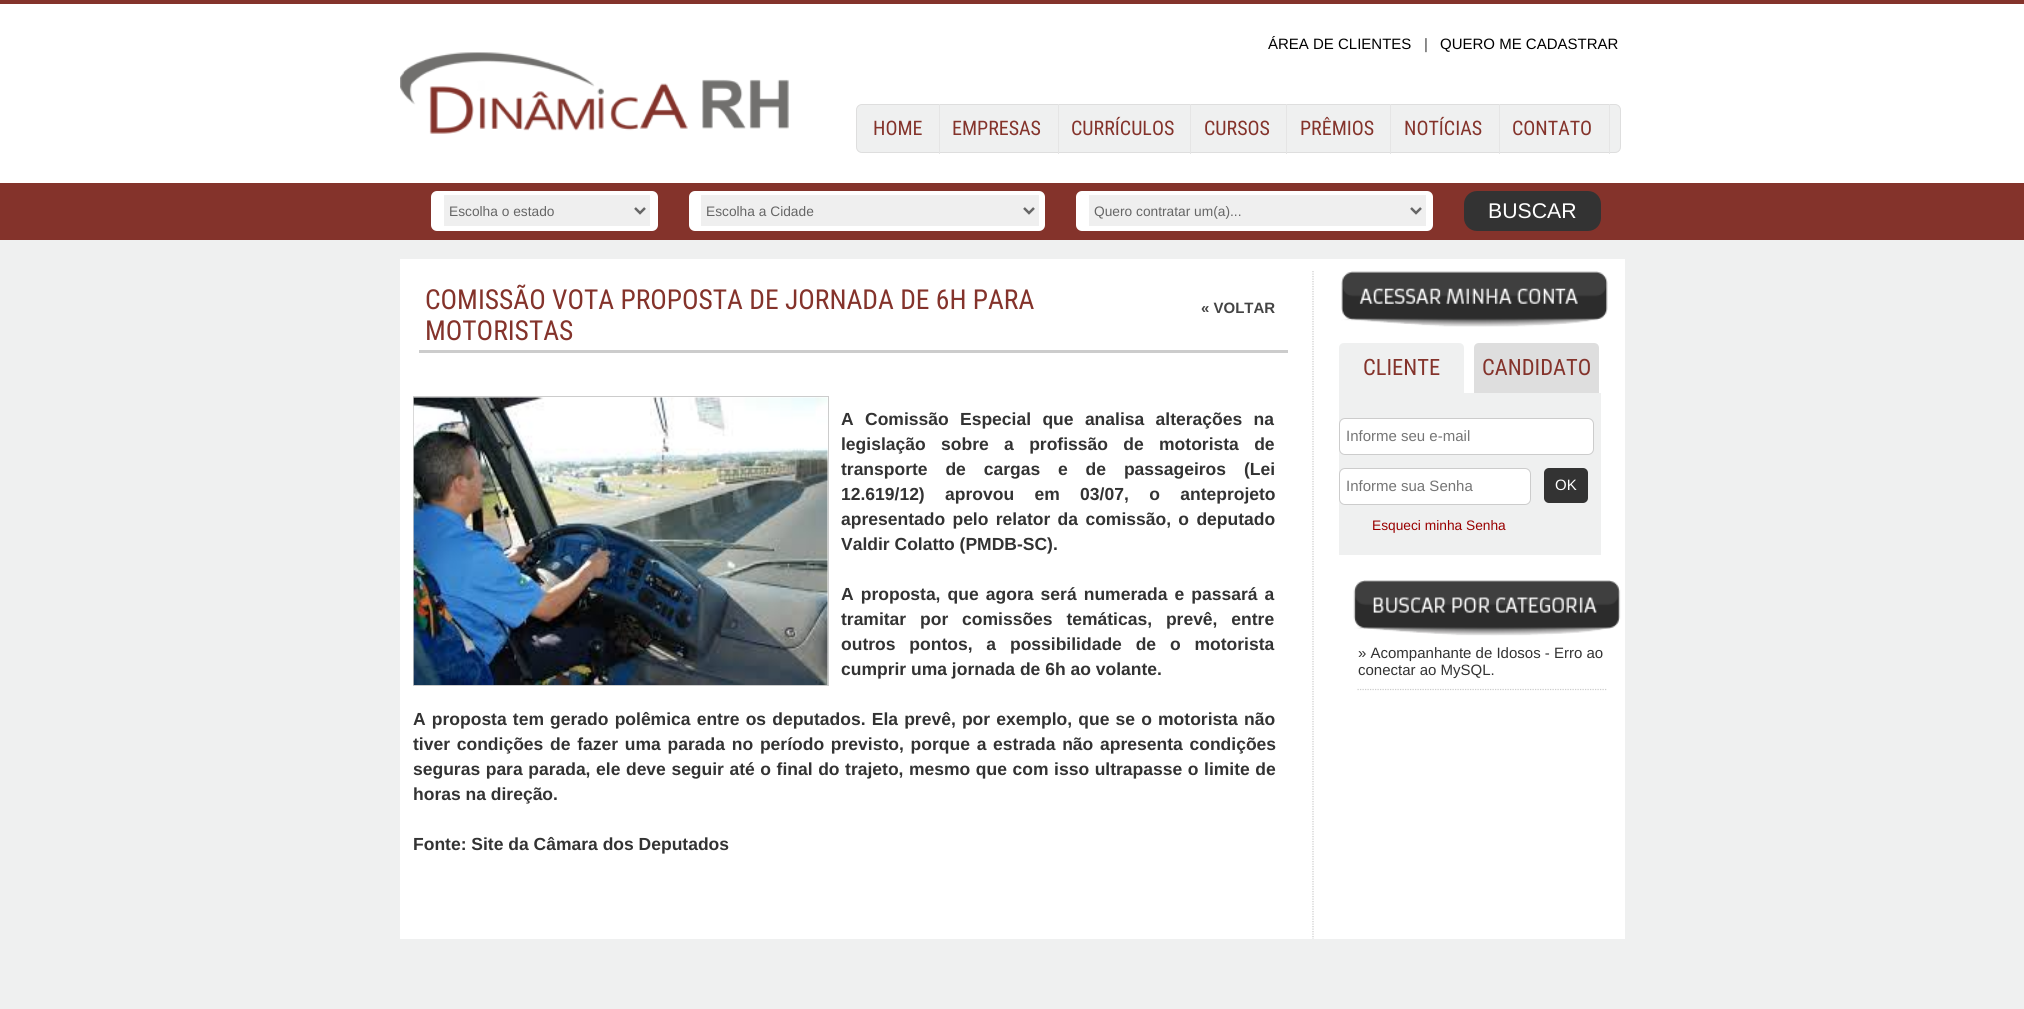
import math
import cairo

surface = cairo.ImageSurface(cairo.FORMAT_RGB24, 2024, 1009)
ctx = cairo.Context(surface)
options = cairo.FontOptions()
options.set_hint_metrics(cairo.HINT_METRICS_OFF)
options.set_hint_style(cairo.HINT_STYLE_NONE)
ctx.set_font_options(options)
ctx.set_miter_limit(4)


def set_color(code):
    ctx.set_source_rgb(*(v / 255 for v in bytes.fromhex(code[-6:])))


def draw_text(x, y, s, family, size, color, bold=False, italic=False):
    ctx.select_font_face(family, cairo.FONT_SLANT_ITALIC if italic else cairo.FONT_SLANT_NORMAL, cairo.FONT_WEIGHT_BOLD if bold else cairo.FONT_WEIGHT_NORMAL)
    ctx.set_font_size(size)
    set_color(color)
    ctx.move_to(x, y)
    ctx.show_text(s)


def draw_spaced(x, y, s, letter, word):
    ctx.move_to(x, y)
    for ch in s:
        ctx.show_text(ch)
        ctx.rel_move_to(letter + word * (ch == ' '), 0)


def fill_rect(x, y, w, h, color):
    set_color(color)
    ctx.rectangle(x, y, w, h)
    ctx.fill()


def rounded_rect(x, y, w, h, r):
    ctx.new_sub_path()
    for i, (u, v) in enumerate([(x + w - r, y + h - r), (x + r, y + h - r), (x + r, y + r), (x + w - r, y + r)]):
        ctx.arc(u, v, r, i * math.pi / 2, (i + 1) * math.pi / 2)
    ctx.close_path()


def draw_image(path, x, y, w, h):
    ctx.save()
    ctx.set_source_surface(cairo.ImageSurface.create_from_png(path), x, y)
    ctx.rectangle(x, y, w, h)
    ctx.fill()
    ctx.restore()


set_color("#eff0f0")
ctx.paint()
fill_rect(0, 4, 2024, 179, "#ffffff")
fill_rect(0, 0, 2024, 4, "#84332b")
draw_text(1268, 49, "ÁREA DE CLIENTES", "Liberation Sans", 15, "#000000")
draw_text(1424, 49, "|", "Liberation Sans", 15, "#444444")
draw_text(1440, 49, "QUERO ME CADASTRAR", "Liberation Sans", 15, "#000000")
draw_image("assets/img1.png", 400, 52, 389, 82)
set_color("#eff0f0")
rounded_rect(856.5, 104.5, 764, 48, 5.5)
ctx.fill_preserve()
set_color("#dedede")
ctx.set_line_width(1)
ctx.stroke()
draw_text(873, 135, "HOME", "Roboto Condensed", 20, "#84332b")
fill_rect(939, 104, 1, 50, "#e5e5e5")
draw_text(952, 135, "EMPRESAS", "Roboto Condensed", 20, "#84332b")
fill_rect(1058, 104, 1, 50, "#e5e5e5")
draw_text(1071, 135, "CURRÍCULOS", "Roboto Condensed", 20, "#84332b")
fill_rect(1190, 104, 1, 50, "#e5e5e5")
draw_text(1204, 135, "CURSOS", "Roboto Condensed", 20, "#84332b")
fill_rect(1286, 104, 1, 50, "#e5e5e5")
draw_text(1300, 135, "PRÊMIOS", "Roboto Condensed", 20, "#84332b")
fill_rect(1390, 104, 1, 50, "#e5e5e5")
draw_text(1404, 135, "NOTÍCIAS", "Roboto Condensed", 20, "#84332b")
fill_rect(1499, 104, 1, 50, "#e5e5e5")
draw_text(1512, 135, "CONTATO", "Roboto Condensed", 20, "#84332b")
fill_rect(1609, 104, 1, 50, "#e5e5e5")
fill_rect(0, 183, 2024, 57, "#84332b")
set_color("#ffffff")
rounded_rect(431, 191, 227, 40, 6)
ctx.fill()
fill_rect(444, 195, 206, 31, "#efefef")
ctx.new_path()
ctx.move_to(635, 208)
ctx.line_to(640, 213)
ctx.line_to(645, 208)
set_color("#666666")
ctx.set_line_width(2.5)
ctx.stroke()
draw_text(449, 216, "Escolha o estado", "Liberation Sans", 13.75, "#666666")
set_color("#ffffff")
rounded_rect(689, 191, 356, 40, 6)
ctx.fill()
fill_rect(701, 195, 338, 31, "#efefef")
ctx.new_path()
ctx.move_to(1024, 208)
ctx.line_to(1029, 213)
ctx.line_to(1034, 208)
set_color("#666666")
ctx.stroke()
draw_text(706, 216, "Escolha a Cidade", "Liberation Sans", 13.75, "#666666")
set_color("#ffffff")
rounded_rect(1076, 191, 357, 40, 6)
ctx.fill()
fill_rect(1089, 195, 337, 31, "#efefef")
ctx.new_path()
ctx.move_to(1411, 208)
ctx.line_to(1416, 213)
ctx.line_to(1421, 208)
set_color("#666666")
ctx.stroke()
draw_text(1094, 216, "Quero contratar um(a)...", "Liberation Sans", 13.75, "#666666")
set_color("#333333")
rounded_rect(1464, 191, 137, 40, 13)
ctx.fill()
draw_text(1488, 218, "BUSCAR", "Liberation Sans", 21.25, "#ffffff")
fill_rect(400, 259, 1225, 680, "#ffffff")
ctx.new_path()
ctx.move_to(1313, 271)
ctx.line_to(1313, 939)
set_color("#cccccc")
ctx.set_line_width(1.2)
ctx.set_dash([1.25, 1.25])
ctx.stroke()
fill_rect(419, 350, 869, 3, "#cccccc")
draw_text(425, 309, "COMISSÃO VOTA PROPOSTA DE JORNADA DE 6H PARA", "Roboto Condensed", 27.5, "#84332b")
draw_text(425, 340, "MOTORISTAS", "Roboto Condensed", 27.5, "#84332b")
draw_text(1201, 313, "« VOLTAR", "Liberation Sans", 15, "#444444", bold=True)
ctx.rectangle(413.5, 396.5, 415, 289)
set_color("#cccccc")
ctx.set_line_width(1)
ctx.set_dash([])
ctx.stroke()
draw_image("assets/img2.png", 413, 397, 415, 288)
ctx.set_font_size(17.5)
set_color("#333333")
draw_spaced(841, 425, "A Comissão Especial que analisa alterações na", 0, 6.5)
draw_spaced(841, 450, "legislação sobre a profissão de motorista de", 0, 10.5)
draw_spaced(841, 475, "transporte de cargas e de passageiros (Lei", 0, 13)
draw_spaced(841, 500, "12.619/12) aprovou em 03/07, o anteprojeto", 0, 15.5)
draw_spaced(841, 525, "apresentado pelo relator da comissão, o deputado", 0, 2.5)
draw_text(841, 550, "Valdir Colatto (PMDB-SC).", "Liberation Sans", 17.5, "#333333", bold=True)
draw_spaced(841, 600, "A proposta, que agora será numerada e passará a", 0, 2.25)
draw_spaced(841, 625, "tramitar por comissões temáticas, prevê, entre", 0, 9)
draw_spaced(841, 650, "outros pontos, a possibilidade de o motorista", 0, 9)
draw_text(841, 675, "cumprir uma jornada de 6h ao volante.", "Liberation Sans", 17.5, "#333333", bold=True)
draw_spaced(413, 725, "A proposta tem gerado polêmica entre os deputados. Ela prevê, por exemplo, que se o motorista não", 0, 1.3)
draw_spaced(413, 750, "tiver condições de fazer uma parada no período previsto, porque a estrada não apresenta condições", 0, 1.9)
draw_spaced(413, 775, "seguras para parada, ele deve seguir até o final do trajeto, mesmo que com isso ultrapasse o limite de", 0, 0.7)
draw_text(413, 800, "horas na direção.", "Liberation Sans", 17.5, "#333333", bold=True)
draw_text(413, 850, "Fonte: Site da Câmara dos Deputados", "Liberation Sans", 17.5, "#333333", bold=True)
draw_image("assets/img3.png", 1341, 271, 267, 56)
set_color("#eff0f0")
ctx.new_path()
ctx.move_to(1344, 343)
ctx.line_to(1459, 343)
ctx.curve_to(1462, 343, 1464, 345, 1464, 348)
ctx.line_to(1464, 393)
ctx.line_to(1339, 393)
ctx.line_to(1339, 348)
ctx.curve_to(1339, 345, 1341, 343, 1344, 343)
ctx.close_path()
ctx.fill()
draw_text(1363, 375, "CLIENTE", "Roboto Condensed", 22.5, "#84332b")
set_color("#dedede")
ctx.new_path()
ctx.move_to(1479, 343)
ctx.line_to(1594, 343)
ctx.curve_to(1597, 343, 1599, 345, 1599, 348)
ctx.line_to(1599, 393)
ctx.line_to(1474, 393)
ctx.line_to(1474, 348)
ctx.curve_to(1474, 345, 1476, 343, 1479, 343)
ctx.close_path()
ctx.fill()
draw_text(1482, 375, "CANDIDATO", "Roboto Condensed", 22.5, "#84332b")
fill_rect(1339, 393, 262, 162, "#eff0f0")
set_color("#ffffff")
rounded_rect(1339.5, 418.5, 254, 36, 5.5)
ctx.fill_preserve()
set_color("#cccccc")
ctx.stroke()
draw_text(1346, 441, "Informe seu e-mail", "Liberation Sans", 15, "#757575")
set_color("#ffffff")
rounded_rect(1339.5, 468.5, 191, 36, 5.5)
ctx.fill_preserve()
set_color("#cccccc")
ctx.stroke()
draw_text(1346, 491, "Informe sua Senha", "Liberation Sans", 15, "#757575")
set_color("#333333")
rounded_rect(1544, 468, 44, 35, 5)
ctx.fill()
draw_text(1555, 490, "OK", "Liberation Sans", 15, "#ffffff")
draw_text(1372, 530, "Esqueci minha Senha", "Liberation Sans", 13.75, "#990000")
draw_image("assets/img4.png", 1353, 580, 268, 56)
ctx.new_path()
ctx.move_to(1357.5, 689.5)
ctx.line_to(1607.5, 689.5)
set_color("#cccccc")
ctx.set_line_width(1.2)
ctx.set_dash([1.25, 1.25])
ctx.stroke()
draw_text(1358, 658, "» Acompanhante de Idosos - Erro ao", "Liberation Sans", 15, "#333333")
draw_text(1358, 675, "conectar ao MySQL.", "Liberation Sans", 15, "#333333")
surface.write_to_png("output.png")
